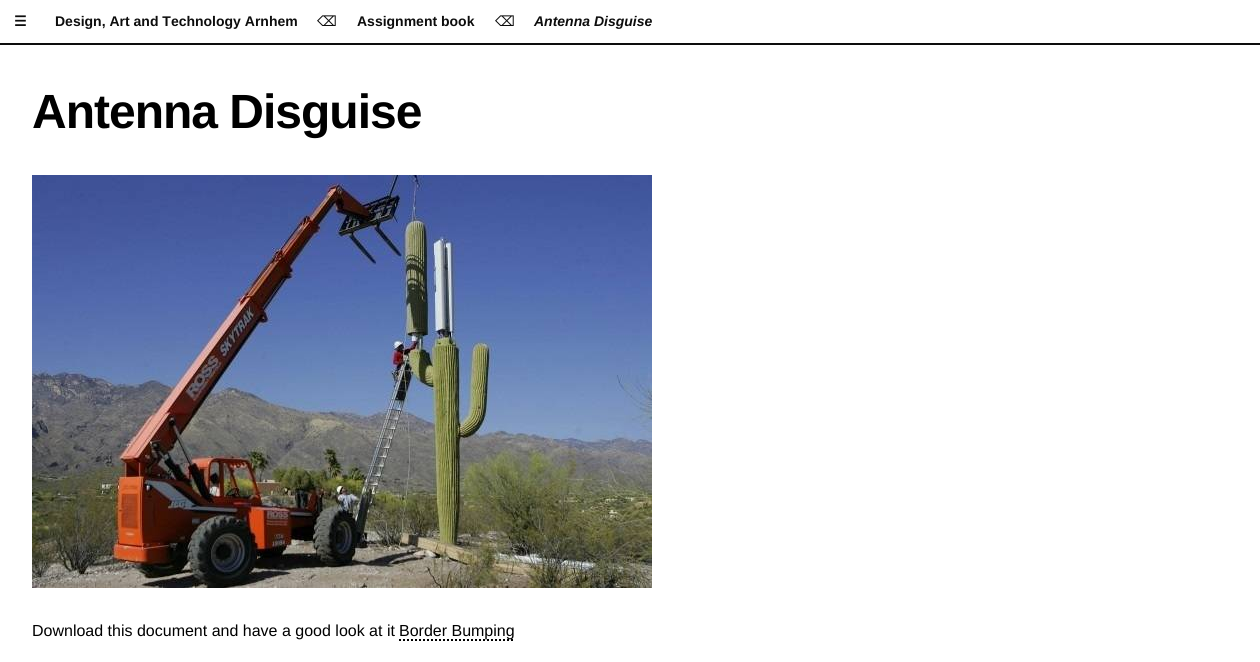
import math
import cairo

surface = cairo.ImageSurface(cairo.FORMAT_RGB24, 1260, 662)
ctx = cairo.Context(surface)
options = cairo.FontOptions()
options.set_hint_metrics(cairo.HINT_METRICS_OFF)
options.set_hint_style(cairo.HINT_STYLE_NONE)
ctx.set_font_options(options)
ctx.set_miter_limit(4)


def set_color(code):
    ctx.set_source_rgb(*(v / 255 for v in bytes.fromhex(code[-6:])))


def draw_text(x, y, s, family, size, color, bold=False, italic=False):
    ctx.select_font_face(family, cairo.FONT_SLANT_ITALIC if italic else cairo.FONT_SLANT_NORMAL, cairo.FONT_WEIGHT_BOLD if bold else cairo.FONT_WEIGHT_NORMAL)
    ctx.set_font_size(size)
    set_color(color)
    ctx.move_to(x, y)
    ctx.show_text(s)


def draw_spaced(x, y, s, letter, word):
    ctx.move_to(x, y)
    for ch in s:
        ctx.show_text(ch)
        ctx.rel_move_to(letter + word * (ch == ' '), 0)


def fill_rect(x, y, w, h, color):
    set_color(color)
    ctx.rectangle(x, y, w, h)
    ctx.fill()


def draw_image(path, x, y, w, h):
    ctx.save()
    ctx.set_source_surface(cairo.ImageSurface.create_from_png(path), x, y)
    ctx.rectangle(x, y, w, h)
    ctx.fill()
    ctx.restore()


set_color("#ffffff")
ctx.paint()
fill_rect(0, 43, 1260, 2, "#0d0d0d")
draw_text(14, 26, "☰", "DejaVu Sans", 14, "#0d0d0d", bold=True)
draw_text(55, 26, "Design, Art and Technology Arnhem", "Liberation Sans", 14, "#0d0d0d", bold=True)
draw_text(317, 26, "⌫", "DejaVu Sans", 14, "#0d0d0d")
draw_text(357, 26, "Assignment book", "Liberation Sans", 14, "#0d0d0d", bold=True)
draw_text(495, 26, "⌫", "DejaVu Sans", 14, "#0d0d0d")
draw_text(534, 26, "Antenna Disguise", "Liberation Sans", 14, "#0d0d0d", bold=True, italic=True)
ctx.select_font_face("Liberation Sans", cairo.FONT_SLANT_NORMAL, cairo.FONT_WEIGHT_BOLD)
ctx.set_font_size(48)
set_color("#000000")
draw_spaced(32, 128, "Antenna Disguise", -1, 0)
draw_image("assets/img1.png", 32, 175, 620, 413)
draw_text(32, 636, "Download this document and have a good look at it", "Liberation Sans", 16, "#000000")
ctx.new_path()
ctx.move_to(399, 640)
ctx.line_to(515, 640)
ctx.set_dash([2, 2])
ctx.stroke()
draw_text(399, 636, "Border Bumping", "Liberation Sans", 16, "#000000")
surface.write_to_png("output.png")
